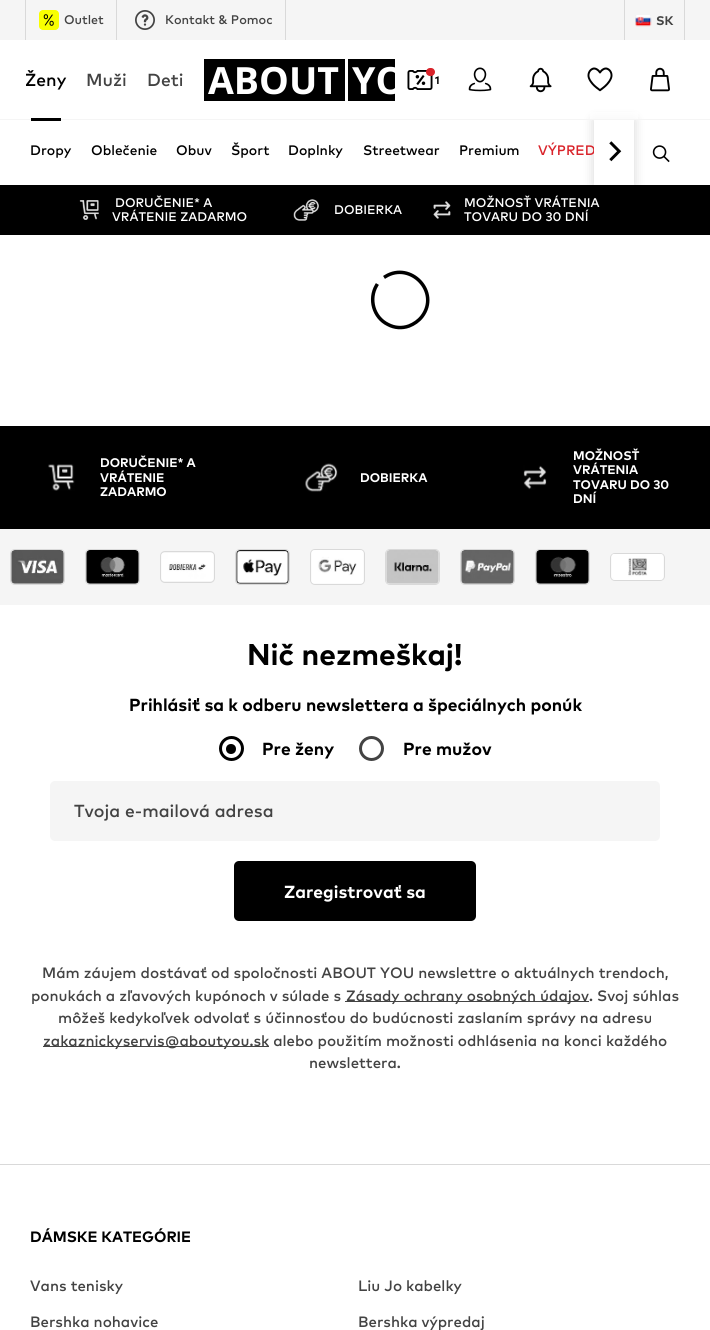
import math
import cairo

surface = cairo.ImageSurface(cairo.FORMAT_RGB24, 710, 1330)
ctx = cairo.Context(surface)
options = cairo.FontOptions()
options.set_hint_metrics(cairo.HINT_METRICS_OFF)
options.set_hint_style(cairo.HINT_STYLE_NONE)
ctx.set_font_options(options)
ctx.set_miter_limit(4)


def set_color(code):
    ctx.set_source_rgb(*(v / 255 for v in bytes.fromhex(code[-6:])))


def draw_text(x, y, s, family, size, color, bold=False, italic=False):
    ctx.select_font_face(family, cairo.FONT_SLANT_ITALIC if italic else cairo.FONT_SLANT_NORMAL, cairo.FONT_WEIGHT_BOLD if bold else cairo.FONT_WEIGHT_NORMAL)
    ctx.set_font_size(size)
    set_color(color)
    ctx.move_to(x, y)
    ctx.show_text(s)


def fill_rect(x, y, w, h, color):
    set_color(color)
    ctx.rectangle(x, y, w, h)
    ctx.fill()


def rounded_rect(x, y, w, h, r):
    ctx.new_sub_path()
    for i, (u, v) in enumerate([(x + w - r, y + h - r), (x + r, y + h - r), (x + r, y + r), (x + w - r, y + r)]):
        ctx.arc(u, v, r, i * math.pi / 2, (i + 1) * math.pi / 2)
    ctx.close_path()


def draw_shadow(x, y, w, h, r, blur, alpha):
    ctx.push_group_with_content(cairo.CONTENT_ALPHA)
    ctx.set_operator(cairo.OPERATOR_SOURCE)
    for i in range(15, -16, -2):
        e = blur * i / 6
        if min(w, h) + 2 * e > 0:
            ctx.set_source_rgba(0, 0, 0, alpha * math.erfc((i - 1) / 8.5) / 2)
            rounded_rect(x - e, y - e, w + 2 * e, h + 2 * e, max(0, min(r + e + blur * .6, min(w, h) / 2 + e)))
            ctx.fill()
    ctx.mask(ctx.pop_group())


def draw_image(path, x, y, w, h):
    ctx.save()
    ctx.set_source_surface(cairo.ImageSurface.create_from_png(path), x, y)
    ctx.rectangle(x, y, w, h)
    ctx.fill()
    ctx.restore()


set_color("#ffffff")
ctx.paint()
fill_rect(0, 0, 710, 40, "#f5f5f5")
fill_rect(285, 0, 1, 40, "#d9d9d9")
fill_rect(25, 0, 1, 40, "#d9d9d9")
set_color("#f9ff00")
rounded_rect(39, 10, 20, 20, 4)
ctx.fill()
draw_image("assets/img1.png", 43, 14, 11, 12)
draw_text(64, 24, "Outlet", "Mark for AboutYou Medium", 12.5, "#434343")
fill_rect(116, 0, 1, 40, "#d9d9d9")
draw_image("assets/img2.png", 135, 10, 20, 20)
draw_text(165, 24, "Kontakt & Pomoc", "Mark for AboutYou Medium", 12.5, "#434343")
fill_rect(684, 0, 1, 40, "#d9d9d9")
fill_rect(624, 0, 1, 40, "#d9d9d9")
draw_image("assets/img3.png", 635, 15, 17, 12)
draw_text(656, 25, "SK", "Mark for AboutYou", 12.5, "#434343", bold=True)
draw_image("assets/img10.png", 652, 145, 18, 18)
fill_rect(0, 185, 710, 50, "#000000")
set_color("#000000")
draw_shadow(594, 120, 40, 65, 0, 6, 0.16)
ctx.set_source_rgba(1, 1, 1, 0.7)
ctx.rectangle(590, 112, 48, 7)
ctx.fill()
fill_rect(0, 119, 710, 1, "#f5f5f5")
draw_text(25, 86, "Ženy", "Mark for AboutYou Medium", 17.5, "#000000")
fill_rect(31, 118, 30, 3, "#000000")
draw_text(86, 86, "Muži", "Mark for AboutYou Medium", 17.5, "#434343")
draw_text(147, 86, "Deti", "Mark for AboutYou Medium", 17.5, "#434343")
fill_rect(204, 59, 141, 42, "#000000")
draw_text(208, 94, "ABOUT", "Open Sans", 37.5, "#ffffff", bold=True)
fill_rect(348, 59, 47, 42, "#000000")
ctx.save()
ctx.rectangle(199, 59, 196, 44)
ctx.clip()
draw_text(352, 94, "YO", "Open Sans", 37.5, "#ffffff", bold=True)
ctx.restore()
draw_image("assets/img4.png", 407, 70, 26, 20)
set_color("#d9232a")
rounded_rect(426, 68, 9, 8, 4)
ctx.fill()
draw_text(435, 84, "1", "Mark for AboutYou", 11, "#000000", bold=True)
draw_image("assets/img5.png", 468, 67, 24, 25)
draw_image("assets/img6.png", 529, 67, 23, 26)
draw_image("assets/img7.png", 587, 67, 26, 25)
draw_image("assets/img8.png", 650, 67, 20, 25)
draw_text(30, 155, "Dropy", "Mark for AboutYou Medium", 13.75, "#000000")
draw_text(91, 155, "Oblečenie", "Mark for AboutYou Medium", 13.75, "#000000")
draw_text(176, 155, "Obuv", "Mark for AboutYou Medium", 13.75, "#000000")
draw_text(231, 155, "Šport", "Mark for AboutYou Medium", 13.75, "#000000")
draw_text(288, 155, "Doplnky", "Mark for AboutYou Medium", 13.75, "#000000")
draw_text(363, 155, "Streetwear", "Mark for AboutYou Medium", 13.75, "#000000")
draw_text(459, 155, "Premium", "Mark for AboutYou Medium", 13.75, "#000000")
draw_text(538, 155, "VÝPRED", "Mark for AboutYou Medium", 13.75, "#d9232a")
fill_rect(594, 120, 40, 65, "#ffffff")
draw_image("assets/img9.png", 609, 141, 13, 21)
draw_image("assets/img11.png", 79, 200, 20, 20)
draw_text(115, 207, "DORUČENIE* A", "Mark for AboutYou Medium", 12.5, "#ffffff")
draw_text(112, 221, "VRÁTENIE ZADARMO", "Mark for AboutYou Medium", 12.5, "#ffffff")
draw_image("assets/img12.png", 293, 199, 26, 22)
draw_text(334, 214, "DOBIERKA", "Mark for AboutYou Medium", 12.5, "#ffffff")
draw_image("assets/img13.png", 433, 201, 18, 18)
draw_text(464, 207, "MOŽNOSŤ VRÁTENIA", "Mark for AboutYou Medium", 12.5, "#ffffff")
draw_text(464, 221, "TOVARU DO 30 DNÍ", "Mark for AboutYou Medium", 12.5, "#ffffff")
ctx.new_path()
ctx.move_to(385.5, 276.5)
ctx.curve_to(410.5, 261, 440.5, 292, 422, 316.5)
ctx.curve_to(418.5, 321, 414, 324, 409, 326)
ctx.curve_to(402, 328.5, 394.5, 328, 388, 324.5)
ctx.curve_to(373.5, 317.5, 368.5, 299, 376.5, 285.5)
set_color("#000000")
ctx.set_line_width(3.5)
ctx.set_line_cap(cairo.LINE_CAP_SQUARE)
ctx.stroke()
fill_rect(0, 426, 710, 103, "#000000")
draw_image("assets/img14.png", 48, 464, 27, 27)
draw_text(100, 467, "DORUČENIE* A", "Mark for AboutYou", 12.5, "#ffffff", bold=True)
draw_text(100, 482, "VRÁTENIE", "Mark for AboutYou", 12.5, "#ffffff", bold=True)
draw_text(100, 496, "ZADARMO", "Mark for AboutYou", 12.5, "#ffffff", bold=True)
draw_image("assets/img15.png", 305, 463, 33, 29)
draw_text(360, 482, "DOBIERKA", "Mark for AboutYou", 12.5, "#ffffff", bold=True)
draw_image("assets/img16.png", 523, 465, 24, 25)
draw_text(573, 460, "MOŽNOSŤ", "Mark for AboutYou", 12.5, "#ffffff", bold=True)
draw_text(573, 474, "VRÁTENIA", "Mark for AboutYou", 12.5, "#ffffff", bold=True)
draw_text(573, 489, "TOVARU DO 30", "Mark for AboutYou", 12.5, "#ffffff", bold=True)
draw_text(573, 503, "DNÍ", "Mark for AboutYou", 12.5, "#ffffff", bold=True)
fill_rect(0, 529, 710, 76, "#f5f5f5")
rounded_rect(10.5, 549.5, 54, 35, 4.5)
set_color("#d9d9d9")
ctx.set_line_width(1)
ctx.set_line_cap(cairo.LINE_CAP_BUTT)
ctx.stroke()
draw_image("assets/img17.png", 11, 550, 53, 34)
rounded_rect(85.5, 549.5, 54, 35, 4.5)
ctx.stroke()
draw_image("assets/img18.png", 86, 550, 53, 34)
rounded_rect(160.5, 551.5, 54, 31, 4.5)
ctx.stroke()
draw_image("assets/img19.png", 161, 553, 53, 28)
rounded_rect(235.5, 549.5, 54, 35, 4.5)
ctx.stroke()
draw_image("assets/img20.png", 236, 550, 53, 34)
rounded_rect(310.5, 549.5, 54, 35, 4.5)
ctx.stroke()
draw_image("assets/img21.png", 311, 550, 53, 34)
rounded_rect(385.5, 549.5, 54, 35, 4.5)
ctx.stroke()
draw_image("assets/img22.png", 386, 550, 53, 34)
rounded_rect(460.5, 549.5, 54, 35, 4.5)
ctx.stroke()
draw_image("assets/img23.png", 461, 550, 53, 34)
rounded_rect(535.5, 549.5, 54, 35, 4.5)
ctx.stroke()
draw_image("assets/img24.png", 536, 550, 53, 34)
rounded_rect(610.5, 553.5, 54, 27, 4.5)
ctx.stroke()
draw_image("assets/img25.png", 611, 554, 53, 26)
draw_text(247, 665, "Nič nezmeškaj!", "Mark for AboutYou", 30, "#000000", bold=True)
draw_text(129, 711, "Prihlásiť sa k odberu newslettera a špeciálnych ponúk", "Mark for AboutYou", 17.5, "#000000", bold=True)
ctx.new_path()
ctx.arc(231.5, 748.5, 11, 0, 2 * math.pi)
ctx.set_line_width(3)
ctx.stroke()
ctx.arc(231, 749, 5, 0, 2 * math.pi)
ctx.fill()
draw_text(262, 755, "Pre ženy", "Mark for AboutYou", 17.5, "#000000", bold=True)
ctx.new_path()
ctx.arc(371.5, 748.5, 11, 0, 2 * math.pi)
set_color("#434343")
ctx.stroke()
draw_text(403, 755, "Pre mužov", "Mark for AboutYou", 17.5, "#000000", bold=True)
set_color("#f5f5f5")
rounded_rect(50, 781, 610, 60, 5)
ctx.fill()
draw_text(74, 817, "Tvoja e-mailová adresa", "Mark for AboutYou Medium", 17.5, "#434343")
set_color("#000000")
rounded_rect(234, 861, 242, 60, 5)
ctx.fill()
draw_text(284, 898, "Zaregistrovať sa", "Mark for AboutYou", 17.5, "#ffffff", bold=True)
draw_text(42, 978, "Mám záujem dostávať od spoločnosti ABOUT YOU newslettre o aktuálnych trendoch,", "Mark for AboutYou Medium", 15, "#434343")
draw_text(31, 1001, "ponukách a zľavových kupónoch v súlade s", "Mark for AboutYou Medium", 15, "#434343")
fill_rect(345, 1001, 244, 1, "#434343")
draw_text(346, 1001, "Zásady ochrany osobných údajov. Svoj súhlas", "Mark for AboutYou Medium", 15, "#434343")
draw_text(58, 1023, "môžeš kedykoľvek odvolať s účinnosťou do budúcnosti zaslaním správy na adresu", "Mark for AboutYou Medium", 15, "#434343")
fill_rect(43, 1046, 226, 1, "#434343")
draw_text(43, 1046, "zakaznickyservis@aboutyou.sk alebo použitím možnosti odhlásenia na konci každého", "Mark for AboutYou Medium", 15, "#434343")
draw_text(309, 1068, "newslettera.", "Mark for AboutYou Medium", 15, "#434343")
fill_rect(0, 1164, 710, 1, "#d9d9d9")
draw_text(30, 1242, "DÁMSKE KATEGÓRIE", "Mark for AboutYou", 15, "#000000", bold=True)
draw_text(30, 1291, "Vans tenisky", "Mark for AboutYou Medium", 15, "#434343")
draw_text(358, 1291, "Liu Jo kabelky", "Mark for AboutYou Medium", 15, "#434343")
draw_text(30, 1327, "Bershka nohavice", "Mark for AboutYou Medium", 15, "#434343")
draw_text(358, 1327, "Bershka výpredaj", "Mark for AboutYou Medium", 15, "#434343")
surface.write_to_png("output.png")
